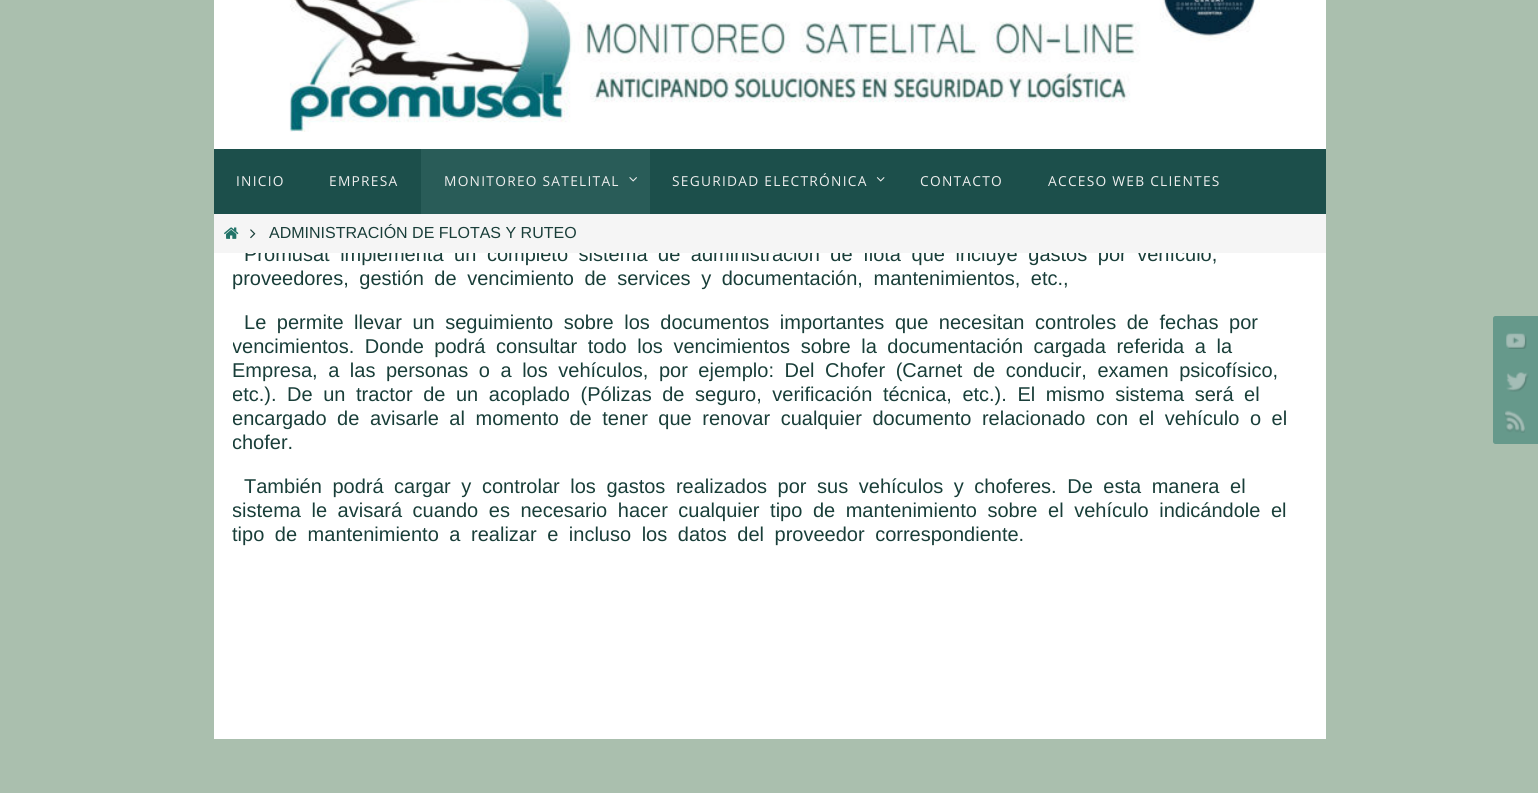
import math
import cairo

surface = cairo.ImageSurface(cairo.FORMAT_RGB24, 1538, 793)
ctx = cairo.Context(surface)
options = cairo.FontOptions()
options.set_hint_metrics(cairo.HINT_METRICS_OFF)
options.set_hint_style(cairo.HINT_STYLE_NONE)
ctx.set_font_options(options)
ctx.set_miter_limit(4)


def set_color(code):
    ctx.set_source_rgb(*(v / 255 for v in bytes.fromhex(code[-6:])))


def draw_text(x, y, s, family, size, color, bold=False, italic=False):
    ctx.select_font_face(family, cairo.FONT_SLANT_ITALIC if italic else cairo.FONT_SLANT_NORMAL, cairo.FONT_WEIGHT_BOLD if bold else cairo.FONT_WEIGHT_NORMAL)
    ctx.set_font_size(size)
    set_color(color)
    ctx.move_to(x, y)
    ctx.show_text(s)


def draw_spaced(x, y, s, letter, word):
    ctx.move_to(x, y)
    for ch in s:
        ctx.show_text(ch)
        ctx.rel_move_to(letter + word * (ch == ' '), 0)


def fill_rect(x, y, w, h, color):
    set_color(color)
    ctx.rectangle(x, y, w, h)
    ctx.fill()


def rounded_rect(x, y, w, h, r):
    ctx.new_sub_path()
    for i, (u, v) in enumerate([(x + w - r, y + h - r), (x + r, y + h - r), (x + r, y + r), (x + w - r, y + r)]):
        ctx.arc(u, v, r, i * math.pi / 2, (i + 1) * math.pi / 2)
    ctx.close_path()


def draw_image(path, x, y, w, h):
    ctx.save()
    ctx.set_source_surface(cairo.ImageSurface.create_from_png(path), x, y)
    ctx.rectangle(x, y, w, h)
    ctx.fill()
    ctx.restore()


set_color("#aabfae")
ctx.paint()
fill_rect(214, 0, 1112, 149, "#ffffff")
draw_image("assets/img1.png", 289, 0, 971, 132)
fill_rect(214, 149, 1112, 65, "#1c4f4b")
ctx.select_font_face("Open Sans")
ctx.set_font_size(13.75)
set_color("#eeeeee")
draw_spaced(236, 186, "INICIO", 1.25, 0)
draw_spaced(329, 186, "EMPRESA", 1.25, 0)
fill_rect(421, 149, 229, 65, "#295c58")
set_color("#eeeeee")
draw_spaced(444, 186, "MONITOREO SATELITAL", 1.25, 0)
draw_image("assets/img2.png", 629, 177, 8, 5)
draw_spaced(672, 186, "SEGURIDAD ELECTRÓNICA", 1.25, 0)
draw_image("assets/img3.png", 876, 177, 9, 5)
draw_spaced(920, 186, "CONTACTO", 1.25, 0)
draw_spaced(1048, 186, "ACCESO WEB CLIENTES", 1.25, 0)
fill_rect(214, 253, 1112, 486, "#ffffff")
ctx.select_font_face("Liberation Sans")
ctx.set_font_size(20)
set_color("#193e39")
draw_spaced(244, 261, "Promusat implementa un completo sistema de administración de flota que incluye gastos por vehículo,", 0, 5)
fill_rect(214, 214, 1112, 39, "#f5f5f5")
draw_image("assets/img4.png", 224, 227, 15, 12)
draw_image("assets/img5.png", 250, 229, 6, 10)
draw_text(269, 238, "ADMINISTRACIÓN DE FLOTAS Y RUTEO", "Liberation Sans", 16, "#193e39")
ctx.set_font_size(20)
draw_spaced(232, 285, "proveedores, gestión de vencimiento de services y documentación, mantenimientos, etc.,", 0, 5)
draw_spaced(244, 329, "Le permite llevar un seguimiento sobre los documentos importantes que necesitan controles de fechas por", 0, 5)
ctx.save()
ctx.rectangle(233, 233, 1075, 333)
ctx.clip()
draw_spaced(232, 353, "vencimientos. Donde podrá consultar todo los vencimientos sobre la documentación cargada referida a la", 0, 5)
ctx.restore()
draw_spaced(232, 377, "Empresa, a las personas o a los vehículos, por ejemplo: Del Chofer (Carnet de conducir, examen psicofísico,", 0, 5)
ctx.save()
ctx.rectangle(233, 233, 1075, 333)
ctx.clip()
draw_spaced(232, 401, "etc.). De un tractor de un acoplado (Pólizas de seguro, verificación técnica, etc.). El mismo sistema será el", 0, 5)
draw_spaced(232, 425, "encargado de avisarle al momento de tener que renovar cualquier documento relacionado con el vehículo o el", 0, 5)
draw_text(232, 449, "chofer.", "Liberation Sans", 20, "#193e39")
ctx.restore()
draw_spaced(244, 493, "También podrá cargar y controlar los gastos realizados por sus vehículos y choferes. De esta manera el", 0, 5)
ctx.save()
ctx.rectangle(233, 233, 1075, 333)
ctx.clip()
draw_spaced(232, 517, "sistema le avisará cuando es necesario hacer cualquier tipo de mantenimiento sobre el vehículo indicándole el", 0, 5)
ctx.restore()
draw_spaced(232, 541, "tipo de mantenimiento a realizar e incluso los datos del proveedor correspondiente.", 0, 5)
set_color("#66998b")
rounded_rect(1493, 316, 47, 48, 2.5)
ctx.fill()
draw_image("assets/img6.png", 1506, 333, 21, 16)
rounded_rect(1493, 356, 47, 48, 2.5)
ctx.fill()
draw_image("assets/img7.png", 1506, 372, 23, 20)
rounded_rect(1493, 396, 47, 48, 2.5)
ctx.fill()
draw_image("assets/img8.png", 1504, 410, 21, 23)
surface.write_to_png("output.png")
